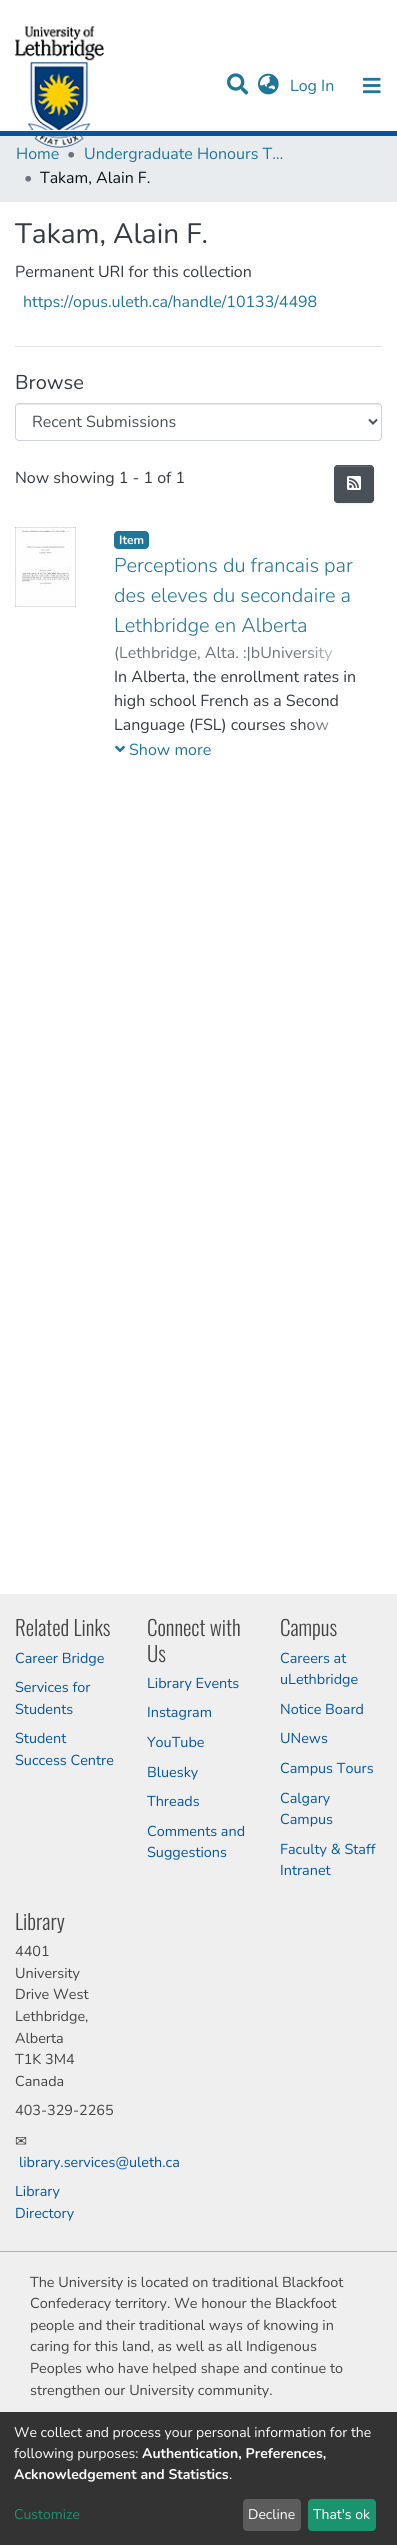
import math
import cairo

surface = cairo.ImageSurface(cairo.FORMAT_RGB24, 397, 2545)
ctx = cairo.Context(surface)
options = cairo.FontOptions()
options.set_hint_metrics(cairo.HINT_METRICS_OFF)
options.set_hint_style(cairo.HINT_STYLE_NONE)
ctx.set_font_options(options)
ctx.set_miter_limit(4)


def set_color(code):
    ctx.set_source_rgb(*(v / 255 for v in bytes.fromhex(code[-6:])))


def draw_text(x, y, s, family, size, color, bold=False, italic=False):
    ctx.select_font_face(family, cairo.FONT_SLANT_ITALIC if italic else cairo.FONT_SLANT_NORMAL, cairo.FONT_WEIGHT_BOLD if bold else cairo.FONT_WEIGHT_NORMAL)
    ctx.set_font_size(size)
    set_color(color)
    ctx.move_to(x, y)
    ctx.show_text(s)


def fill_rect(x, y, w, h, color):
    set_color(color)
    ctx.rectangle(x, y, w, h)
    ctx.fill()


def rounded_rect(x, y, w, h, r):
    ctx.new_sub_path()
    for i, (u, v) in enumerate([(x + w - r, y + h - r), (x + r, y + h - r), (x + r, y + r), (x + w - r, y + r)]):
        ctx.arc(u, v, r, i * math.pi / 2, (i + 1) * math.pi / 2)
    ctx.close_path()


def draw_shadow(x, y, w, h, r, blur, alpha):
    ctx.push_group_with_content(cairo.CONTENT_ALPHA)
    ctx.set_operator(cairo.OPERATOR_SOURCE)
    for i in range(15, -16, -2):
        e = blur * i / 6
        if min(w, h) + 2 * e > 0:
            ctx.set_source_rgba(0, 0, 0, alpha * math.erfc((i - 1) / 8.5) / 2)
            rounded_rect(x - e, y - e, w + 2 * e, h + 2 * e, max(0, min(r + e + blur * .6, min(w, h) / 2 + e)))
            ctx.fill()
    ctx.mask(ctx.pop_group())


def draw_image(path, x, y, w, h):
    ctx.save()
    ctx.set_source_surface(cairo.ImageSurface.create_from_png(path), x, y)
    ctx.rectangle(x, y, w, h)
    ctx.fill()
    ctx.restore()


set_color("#ffffff")
ctx.paint()
fill_rect(0, 136, 397, 66, "#e9ecef")
draw_text(16, 159, "Home", "Nunito", 16, "#207698")
draw_text(84, 159, "Undergraduate Honours T…", "Nunito", 16, "#207698")
draw_image("assets/img1.png", 15, 26, 89, 122)
draw_image("assets/img2.png", 227, 73, 22, 22)
draw_image("assets/img3.png", 258, 73, 21, 22)
draw_text(290, 91, "Log In", "Nunito", 16, "#207698")
draw_image("assets/img4.png", 363, 77, 18, 17)
fill_rect(28, 130, 62, 1, "#ffffff")
fill_rect(0, 131, 397, 5, "#07559f")
draw_text(67, 159, "•", "Nunito", 16, "#6c757d")
draw_text(24, 183, "•", "Nunito", 16, "#6c757d")
draw_text(40, 183, "Takam, Alain F.", "Nunito", 16, "#05141a")
fill_rect(15, 346, 367, 1, "#dee2e6")
draw_text(15, 243, "Takam, Alain F.", "Nunito", 28, "#343a40")
draw_text(15, 277, "Permanent URI for this collection", "Nunito", 16, "#343a40")
draw_text(23, 307, "https://opus.uleth.ca/handle/10133/4498", "Nunito", 16, "#207698")
draw_text(15, 389, "Browse", "Nunito", 20, "#343a40")
set_color("#ececec")
ctx.new_path()
ctx.move_to(19, 405)
ctx.line_to(378, 405)
ctx.curve_to(380, 405, 381, 406, 381, 408)
ctx.curve_to(381, 406, 380, 404, 378, 404)
ctx.line_to(19, 404)
ctx.line_to(17, 405)
ctx.line_to(16, 408)
ctx.curve_to(16, 406, 17, 405, 19, 405)
ctx.close_path()
ctx.fill()
rounded_rect(15.5, 403.5, 366, 37, 3.5)
set_color("#ced4da")
ctx.set_line_width(1)
ctx.stroke()
ctx.new_path()
ctx.move_to(369, 419.5)
ctx.line_to(373, 423.5)
ctx.line_to(377, 419.5)
set_color("#495057")
ctx.set_line_width(2)
ctx.stroke()
draw_text(32, 427, "Recent Submissions", "Nunito", 16, "#495057")
draw_text(15, 483, "Now showing 1 - 1 of 1", "Nunito", 16, "#343a40")
set_color("#000000")
draw_shadow(334, 466, 40, 38, 4, 0.5, 0.07)
set_color("#495057")
rounded_rect(334, 465, 40, 38, 4)
ctx.fill()
set_color("#646a70")
ctx.new_path()
ctx.move_to(338, 467)
ctx.line_to(370, 467)
ctx.curve_to(372, 467, 373, 468, 373, 470)
ctx.curve_to(373, 465, 369, 466, 364.5, 466)
ctx.line_to(343.5, 466)
ctx.curve_to(339, 466, 335, 465, 335, 470)
ctx.curve_to(335, 468, 336, 467, 338, 467)
ctx.close_path()
ctx.fill()
rounded_rect(334.5, 465.5, 39, 37, 3.5)
set_color("#495057")
ctx.set_line_width(1)
ctx.stroke()
draw_image("assets/img5.png", 347, 476, 14, 14)
draw_image("assets/img6.png", 15, 527, 61, 80)
set_color("#207698")
rounded_rect(114, 531, 35, 18, 4)
ctx.fill()
draw_text(119, 544, "Item", "Nunito", 12, "#ffffff", bold=True)
draw_text(114, 572, "Perceptions du francais par", "Nunito Light", 20, "#207698")
draw_text(114, 602, "des eleves du secondaire a", "Nunito Light", 20, "#207698")
draw_text(114, 632, "Lethbridge en Alberta", "Nunito Light", 20, "#207698")
draw_text(114, 658, "(Lethbridge, Alta. :|bUniversity", "Nunito", 16, "#6c757d")
gradient = cairo.LinearGradient(302, 653, 382, 653)
gradient.add_color_stop_rgba(0, 1, 1, 1, 0)
gradient.add_color_stop_rgba(0.7, 1, 1, 1, 1)
ctx.set_source(gradient)
ctx.rectangle(303, 646, 30, 15)
ctx.fill()
draw_text(114, 682, "In Alberta, the enrollment rates in", "Nunito", 16, "#343a40")
draw_text(114, 706, "high school French as a Second", "Nunito", 16, "#343a40")
draw_text(114, 730, "Language (FSL) courses show", "Nunito", 16, "#343a40")
gradient = cairo.LinearGradient(302, 725, 382, 725)
gradient.add_color_stop_rgba(0, 1, 1, 1, 0)
gradient.add_color_stop_rgba(0.7, 1, 1, 1, 1)
ctx.set_source(gradient)
ctx.rectangle(303, 722, 26, 9)
ctx.fill()
draw_image("assets/img7.png", 115, 745, 10, 8)
draw_text(129, 755, "Show more", "Nunito", 16, "#207698")
fill_rect(0, 1594, 397, 657, "#efefef")
draw_text(15, 1636, "Related Links", "Oswald Light", 21, "#444444")
draw_text(15, 1663, "Career Bridge", "Nunito", 14.4, "#06559e")
draw_text(15, 1692, "Services for", "Nunito", 14.4, "#06559e")
draw_text(15, 1714, "Students", "Nunito", 14.4, "#06559e")
draw_text(15, 1743, "Student", "Nunito", 14.4, "#06559e")
draw_text(15, 1765, "Success Centre", "Nunito", 14.4, "#06559e")
draw_text(147, 1636, "Connect with", "Oswald Light", 21, "#444444")
draw_text(147, 1662, "Us", "Oswald Light", 21, "#444444")
draw_text(147, 1688, "Library Events", "Nunito", 14.4, "#06559e")
draw_text(147, 1717, "Instagram", "Nunito", 14.4, "#06559e")
draw_text(147, 1747, "YouTube", "Nunito", 14.4, "#06559e")
draw_text(147, 1777, "Bluesky", "Nunito", 14.4, "#06559e")
draw_text(147, 1806, "Threads", "Nunito", 14.4, "#06559e")
draw_text(147, 1836, "Comments and", "Nunito", 14.4, "#06559e")
draw_text(147, 1857, "Suggestions", "Nunito", 14.4, "#06559e")
draw_text(280, 1636, "Campus", "Oswald Light", 21, "#444444")
draw_text(280, 1663, "Careers at", "Nunito", 14.4, "#06559e")
draw_text(280, 1684, "uLethbridge", "Nunito", 14.4, "#06559e")
draw_text(280, 1714, "Notice Board", "Nunito", 14.4, "#06559e")
draw_text(280, 1743, "UNews", "Nunito", 14.4, "#06559e")
draw_text(280, 1773, "Campus Tours", "Nunito", 14.4, "#06559e")
draw_text(280, 1803, "Calgary", "Nunito", 14.4, "#06559e")
draw_text(280, 1824, "Campus", "Nunito", 14.4, "#06559e")
draw_text(280, 1854, "Faculty & Staff", "Nunito", 14.4, "#06559e")
draw_text(280, 1875, "Intranet", "Nunito", 14.4, "#06559e")
draw_text(15, 1930, "Library", "Oswald Light", 21, "#444444")
draw_text(15, 1956, "4401", "Nunito", 14.4, "#444444")
draw_text(15, 1978, "University", "Nunito", 14.4, "#444444")
draw_text(15, 1999, "Drive West", "Nunito", 14.4, "#444444")
draw_text(15, 2021, "Lethbridge,", "Nunito", 14.4, "#444444")
draw_text(15, 2043, "Alberta", "Nunito", 14.4, "#444444")
draw_text(15, 2064, "T1K 3M4", "Nunito", 14.4, "#444444")
draw_text(15, 2086, "Canada", "Nunito", 14.4, "#444444")
draw_text(15, 2115, "403-329-2265", "Nunito", 14.4, "#444444")
draw_text(15, 2146, "✉", "DejaVu Sans", 14.4, "#444444")
draw_text(19, 2167, "library.services@uleth.ca", "Nunito", 14.4, "#06559e")
draw_text(15, 2196, "Library", "Nunito", 14.4, "#06559e")
draw_text(15, 2218, "Directory", "Nunito", 14.4, "#06559e")
fill_rect(0, 2252, 397, 160, "#efefef")
fill_rect(0, 2251, 397, 1, "#afafaf")
draw_text(30, 2287, "The University is located on traditional Blackfoot", "Nunito", 14.4, "#444444")
draw_text(30, 2308, "Confederacy territory. We honour the Blackfoot", "Nunito", 14.4, "#444444")
draw_text(30, 2330, "people and their traditional ways of knowing in", "Nunito", 14.4, "#444444")
draw_text(30, 2351, "caring for this land, as well as all Indigenous", "Nunito", 14.4, "#444444")
draw_text(30, 2373, "Peoples who have helped shape and continue to", "Nunito", 14.4, "#444444")
draw_text(30, 2395, "strengthen our University community.", "Nunito", 14.4, "#444444")
fill_rect(0, 2412, 397, 133, "#333333")
draw_text(14, 2437, "We collect and process your personal information for the", "Nunito", 14, "#ffffff")
draw_text(14, 2458, "following purposes:", "Nunito", 14, "#ffffff")
draw_text(142, 2458, "Authentication, Preferences,", "Nunito", 14, "#ffffff", bold=True)
draw_text(14, 2479, "Acknowledgement and Statistics", "Nunito", 14, "#ffffff", bold=True)
draw_text(229, 2479, ".", "Nunito", 14, "#ffffff")
draw_text(14, 2519, "Customize", "Nunito", 14, "#1a936f")
set_color("#5c5c5c")
rounded_rect(243, 2499, 58, 32, 4)
ctx.fill()
draw_text(248, 2519, "Decline", "Nunito", 14, "#ffffff")
set_color("#1a936f")
rounded_rect(308, 2499, 68, 32, 4)
ctx.fill()
draw_text(313, 2519, "That's ok", "Nunito", 14, "#ffffff")
surface.write_to_png("output.png")
